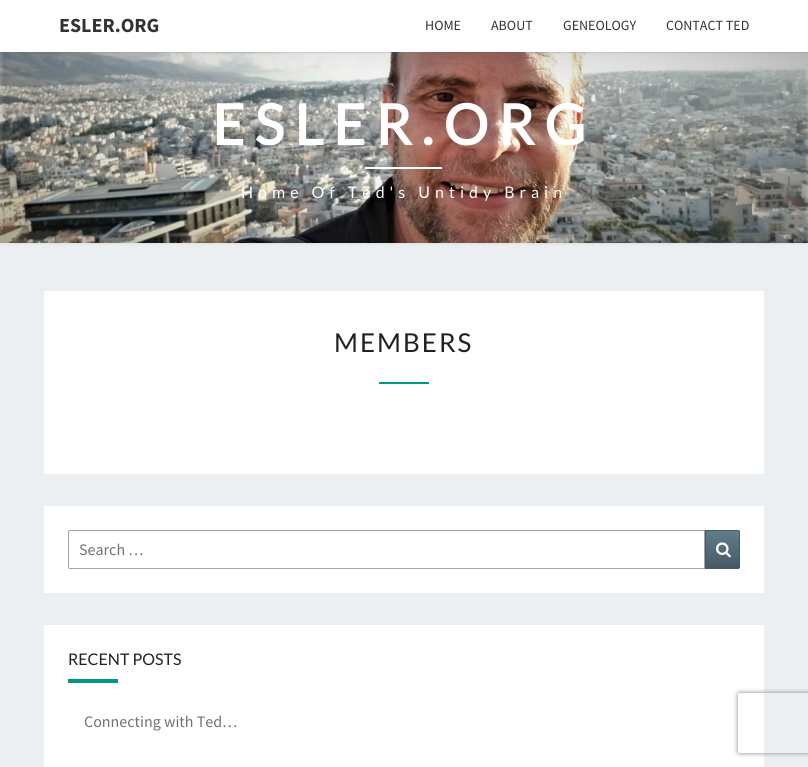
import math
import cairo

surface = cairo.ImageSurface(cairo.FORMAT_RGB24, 808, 767)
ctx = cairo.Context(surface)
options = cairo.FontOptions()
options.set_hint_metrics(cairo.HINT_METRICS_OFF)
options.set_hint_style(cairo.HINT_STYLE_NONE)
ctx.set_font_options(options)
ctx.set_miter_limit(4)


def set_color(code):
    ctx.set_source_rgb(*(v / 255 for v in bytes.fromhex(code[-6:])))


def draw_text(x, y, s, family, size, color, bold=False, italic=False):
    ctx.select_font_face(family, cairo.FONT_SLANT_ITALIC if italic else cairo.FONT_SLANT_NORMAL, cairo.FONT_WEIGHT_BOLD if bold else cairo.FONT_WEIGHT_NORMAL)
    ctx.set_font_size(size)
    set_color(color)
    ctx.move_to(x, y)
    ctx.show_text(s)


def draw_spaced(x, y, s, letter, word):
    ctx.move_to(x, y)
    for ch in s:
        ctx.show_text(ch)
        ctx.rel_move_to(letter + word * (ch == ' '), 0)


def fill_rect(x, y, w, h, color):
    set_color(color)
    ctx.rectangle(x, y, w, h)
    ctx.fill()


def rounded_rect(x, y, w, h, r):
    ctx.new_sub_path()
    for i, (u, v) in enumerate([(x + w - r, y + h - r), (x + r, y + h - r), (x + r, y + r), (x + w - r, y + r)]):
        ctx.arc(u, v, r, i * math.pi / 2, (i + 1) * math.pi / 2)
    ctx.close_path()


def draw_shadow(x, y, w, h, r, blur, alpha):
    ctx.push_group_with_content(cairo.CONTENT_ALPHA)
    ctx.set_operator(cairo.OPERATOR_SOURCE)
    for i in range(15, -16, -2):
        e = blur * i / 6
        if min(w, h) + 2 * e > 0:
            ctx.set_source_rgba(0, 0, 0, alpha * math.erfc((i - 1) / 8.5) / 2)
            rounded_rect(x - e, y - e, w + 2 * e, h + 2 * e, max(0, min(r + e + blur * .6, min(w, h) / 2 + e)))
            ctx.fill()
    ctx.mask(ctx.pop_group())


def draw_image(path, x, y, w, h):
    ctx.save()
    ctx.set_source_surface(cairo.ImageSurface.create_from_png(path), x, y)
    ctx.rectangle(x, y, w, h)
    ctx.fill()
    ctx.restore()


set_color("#eceff1")
ctx.paint()
set_color("#b6b6b6")
draw_shadow(-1, 51, 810, 193, 0, 1, 0.3)
draw_image("assets/img1.png", 0, 52, 808, 191)
set_color("#646464")
draw_shadow(0, 1, 808, 52, 0, 0.5, 0.2)
fill_rect(0, 0, 808, 52, "#ffffff")
draw_text(59, 32, "ESLER.ORG", "Source Sans Pro", 20, "#333333", bold=True)
draw_text(425, 30, "HOME", "Source Sans Pro", 14, "#333333")
draw_text(491, 30, "ABOUT", "Source Sans Pro", 14, "#333333")
draw_text(563, 30, "GENEOLOGY", "Source Sans Pro", 14, "#333333")
draw_text(666, 30, "CONTACT TED", "Source Sans Pro", 14, "#333333")
ctx.select_font_face("Lato", cairo.FONT_SLANT_NORMAL, cairo.FONT_WEIGHT_BOLD)
ctx.set_font_size(56)
set_color("#ffffff")
draw_spaced(212, 145, "ESLER.ORG", 10, 0)
fill_rect(365, 167, 77, 2, "#ffffff")
ctx.select_font_face("Lato")
ctx.set_font_size(16)
draw_spaced(241, 198, "Home Of Ted's Untidy Brain", 5, 0)
fill_rect(44, 291, 720, 183, "#ffffff")
ctx.set_font_size(26)
set_color("#212121")
draw_spaced(334, 352, "MEMBERS", 2, 0)
fill_rect(379, 382, 50, 2, "#009688")
fill_rect(44, 506, 720, 87, "#ffffff")
ctx.new_path()
ctx.move_to(70, 530.5)
ctx.line_to(704.5, 530.5)
ctx.line_to(704.5, 568.5)
ctx.line_to(70, 568.5)
ctx.curve_to(69, 568.5, 68.5, 568, 68.5, 567)
ctx.line_to(68.5, 532)
ctx.curve_to(68.5, 531, 69, 530.5, 70, 530.5)
ctx.close_path()
set_color("#aaa1a8")
ctx.set_line_width(1)
ctx.stroke()
draw_text(79, 555, "Search …", "Source Sans Pro", 16, "#727272")
gradient = cairo.LinearGradient(723, 531, 723, 568)
gradient.add_color_stop_rgba(0, 0.376, 0.49, 0.545, 1)
gradient.add_color_stop_rgba(1, 0.271, 0.353, 0.392, 1)
ctx.set_source(gradient)
ctx.rectangle(706, 531, 34, 37)
ctx.fill()
ctx.new_path()
ctx.move_to(705.5, 530.5)
ctx.line_to(738, 530.5)
ctx.curve_to(739, 530.5, 739.5, 531, 739.5, 532)
ctx.line_to(739.5, 567)
ctx.curve_to(739.5, 568, 739, 568.5, 738, 568.5)
ctx.line_to(705.5, 568.5)
ctx.close_path()
set_color("#455a64")
ctx.stroke()
draw_image("assets/img2.png", 716, 542, 15, 16)
fill_rect(44, 625, 720, 142, "#ffffff")
draw_text(68, 665, "RECENT POSTS", "Lato", 16, "#212121")
fill_rect(68, 679, 50, 4, "#009688")
draw_text(84, 727, "Connecting with Ted…", "Source Sans Pro", 16, "#727272")
ctx.save()
ctx.set_fill_rule(cairo.FILL_RULE_EVEN_ODD)
ctx.new_path()
ctx.move_to(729, 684)
ctx.line_to(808, 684)
ctx.line_to(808, 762)
ctx.line_to(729, 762)
ctx.close_path()
ctx.move_to(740, 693)
ctx.line_to(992, 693)
ctx.curve_to(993, 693, 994, 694, 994, 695)
ctx.line_to(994, 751)
ctx.curve_to(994, 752, 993, 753, 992, 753)
ctx.line_to(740, 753)
ctx.curve_to(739, 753, 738, 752, 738, 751)
ctx.line_to(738, 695)
ctx.curve_to(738, 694, 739, 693, 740, 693)
ctx.close_path()
ctx.clip()
set_color("#808080")
draw_shadow(738, 693, 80, 60, 2, 2.5, 1)
ctx.restore()
surface.write_to_png("output.png")
